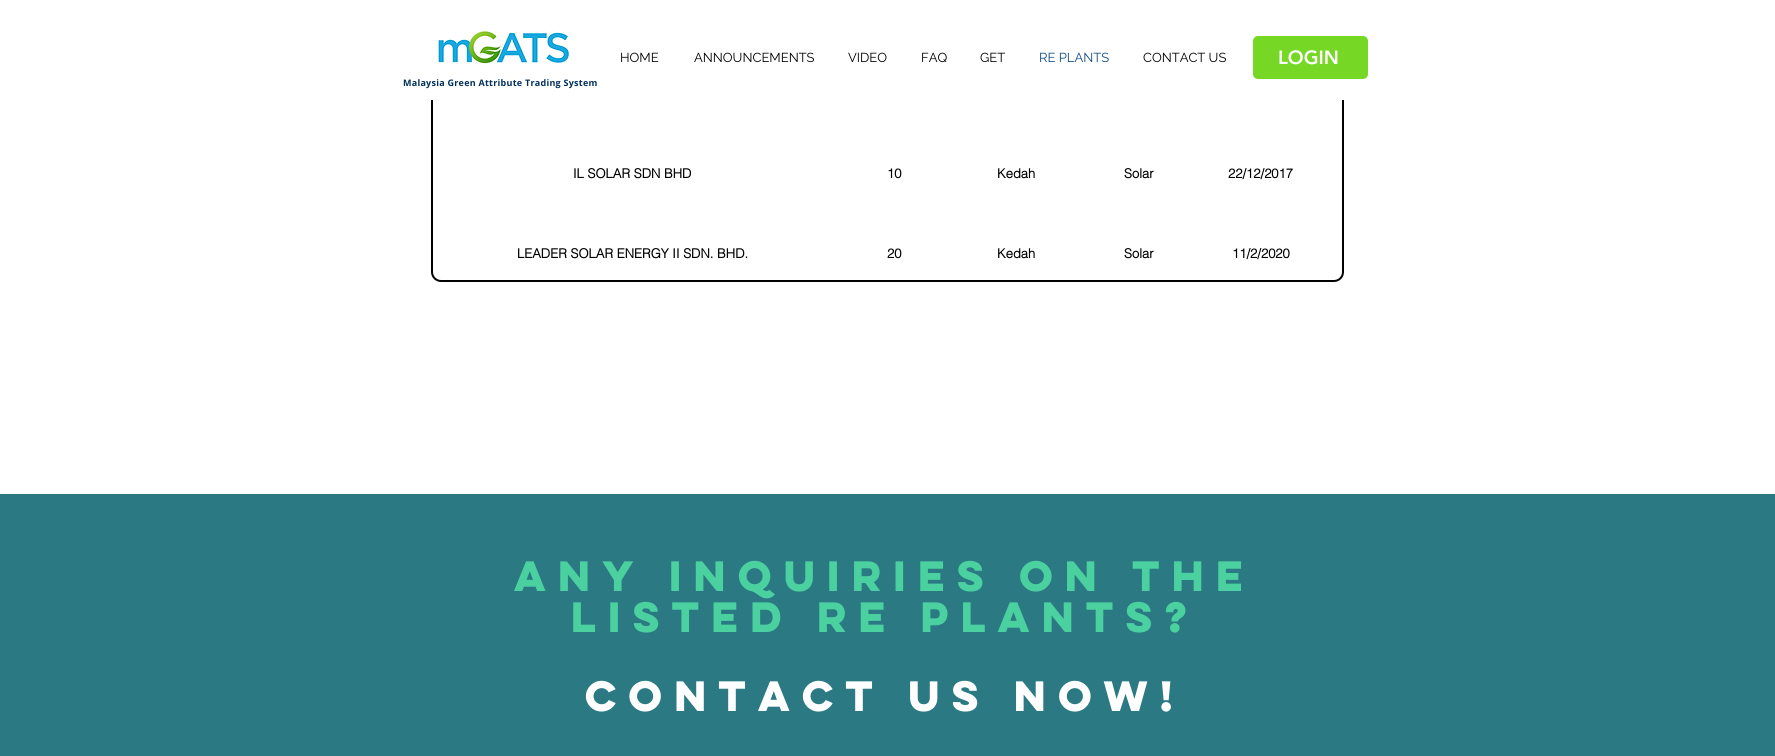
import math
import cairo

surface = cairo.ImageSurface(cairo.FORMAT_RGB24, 1775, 756)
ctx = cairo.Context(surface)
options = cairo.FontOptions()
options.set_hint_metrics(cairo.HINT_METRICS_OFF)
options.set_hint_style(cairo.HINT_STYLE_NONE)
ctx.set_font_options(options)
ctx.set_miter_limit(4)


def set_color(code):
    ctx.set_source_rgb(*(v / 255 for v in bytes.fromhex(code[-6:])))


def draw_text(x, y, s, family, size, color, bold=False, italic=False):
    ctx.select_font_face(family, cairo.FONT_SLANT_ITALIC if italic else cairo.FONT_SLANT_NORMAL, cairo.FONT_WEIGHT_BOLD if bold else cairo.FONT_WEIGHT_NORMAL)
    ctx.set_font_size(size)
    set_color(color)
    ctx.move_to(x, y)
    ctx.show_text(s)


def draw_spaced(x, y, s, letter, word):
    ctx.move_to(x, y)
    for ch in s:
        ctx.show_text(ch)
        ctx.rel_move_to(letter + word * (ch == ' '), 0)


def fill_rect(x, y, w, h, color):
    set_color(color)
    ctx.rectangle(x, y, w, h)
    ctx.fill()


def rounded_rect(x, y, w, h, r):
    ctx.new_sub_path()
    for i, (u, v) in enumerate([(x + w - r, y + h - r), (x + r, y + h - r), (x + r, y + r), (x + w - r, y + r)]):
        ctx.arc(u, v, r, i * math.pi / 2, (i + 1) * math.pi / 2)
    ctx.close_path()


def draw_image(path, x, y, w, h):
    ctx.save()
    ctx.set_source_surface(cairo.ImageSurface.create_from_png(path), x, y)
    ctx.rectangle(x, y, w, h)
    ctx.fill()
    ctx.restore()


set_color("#ffffff")
ctx.paint()
rounded_rect(432, -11, 911, 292, 9)
set_color("#000000")
ctx.stroke()
fill_rect(431, 0, 913, 100, "#ffffff")
draw_image("assets/img1.png", 438, 31, 131, 33)
draw_text(620, 62, "HOME", "Raleway", 13, "#000000")
draw_text(694, 62, "ANNOUNCEMENTS", "Raleway", 13, "#000000")
draw_text(848, 62, "VIDEO", "Raleway", 13, "#000000")
draw_text(921, 62, "FAQ", "Raleway", 13, "#000000")
draw_text(980, 62, "GET", "Raleway", 13, "#000000")
draw_text(1039, 62, "RE PLANTS", "Raleway", 13, "#0f4c85")
draw_text(1143, 62, "CONTACT US", "Raleway", 13, "#000000")
set_color("#76d824")
rounded_rect(1253, 36, 115, 43, 5)
ctx.fill()
draw_text(1278, 64, "LOGIN", "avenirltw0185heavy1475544 Black", 19, "#ffffff")
ctx.select_font_face("Open Sans", cairo.FONT_SLANT_NORMAL, cairo.FONT_WEIGHT_BOLD)
ctx.set_font_size(9)
set_color("#00305b")
draw_spaced(403, 86, "Malaysia Green Attribute Trading System", 0.25, 0)
draw_text(573, 178, "IL SOLAR SDN BHD", "helvetica", 13, "#000000", bold=True)
draw_text(887, 178, "10", "helvetica", 13, "#000000", bold=True)
draw_text(997, 178, "Kedah", "helvetica", 13, "#000000", bold=True)
draw_text(1124, 178, "Solar", "helvetica", 13, "#000000", bold=True)
draw_text(1228, 178, "22/12/2017", "helvetica", 13, "#000000", bold=True)
draw_text(517, 258, "LEADER SOLAR ENERGY II SDN. BHD.", "helvetica", 13, "#000000", bold=True)
draw_text(887, 258, "20", "helvetica", 13, "#000000", bold=True)
draw_text(997, 258, "Kedah", "helvetica", 13, "#000000", bold=True)
draw_text(1124, 258, "Solar", "helvetica", 13, "#000000", bold=True)
draw_text(1232, 258, "11/2/2020", "helvetica", 13, "#000000", bold=True)
fill_rect(0, 494, 1775, 262, "#2b7a83")
ctx.select_font_face("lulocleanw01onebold", cairo.FONT_SLANT_NORMAL, cairo.FONT_WEIGHT_BOLD)
ctx.set_font_size(38)
set_color("#4bd1a0")
draw_spaced(514, 591, "ANY INQUIRIES ON THE", 3.75, 0)
draw_spaced(571, 632, "LISTED RE PLANTS?", 3.75, 0)
set_color("#ffffff")
draw_spaced(585, 711, "CONTACT US NOW!", 3.75, 0)
surface.write_to_png("output.png")
